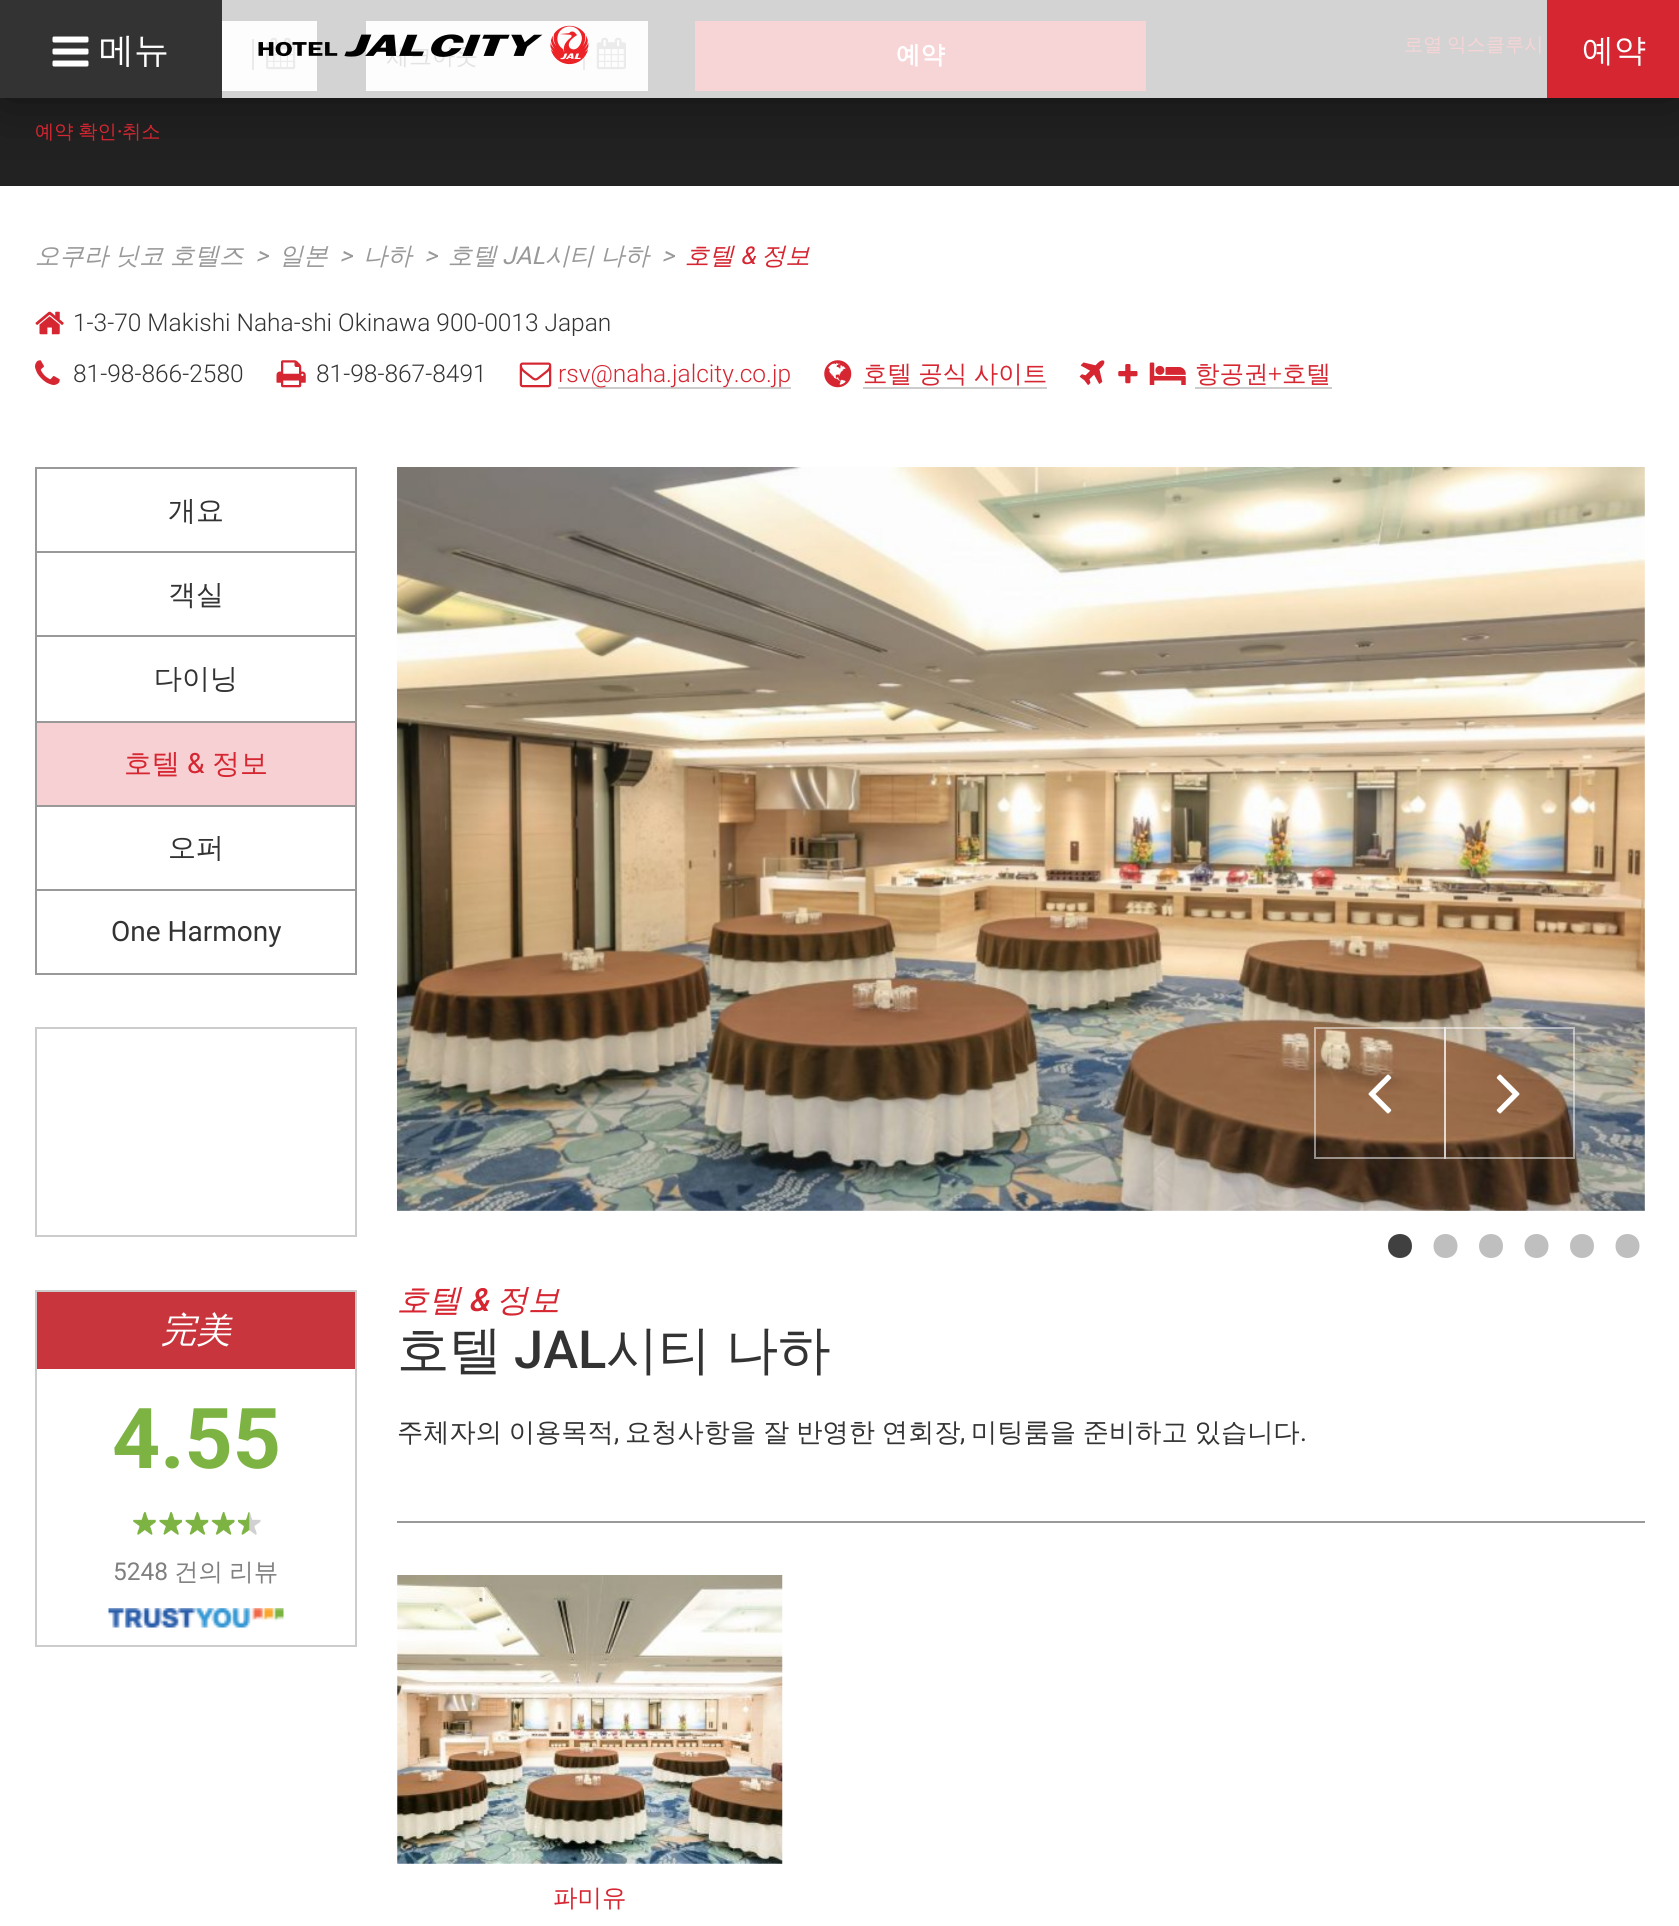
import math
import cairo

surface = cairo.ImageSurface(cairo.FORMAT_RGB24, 1679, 1926)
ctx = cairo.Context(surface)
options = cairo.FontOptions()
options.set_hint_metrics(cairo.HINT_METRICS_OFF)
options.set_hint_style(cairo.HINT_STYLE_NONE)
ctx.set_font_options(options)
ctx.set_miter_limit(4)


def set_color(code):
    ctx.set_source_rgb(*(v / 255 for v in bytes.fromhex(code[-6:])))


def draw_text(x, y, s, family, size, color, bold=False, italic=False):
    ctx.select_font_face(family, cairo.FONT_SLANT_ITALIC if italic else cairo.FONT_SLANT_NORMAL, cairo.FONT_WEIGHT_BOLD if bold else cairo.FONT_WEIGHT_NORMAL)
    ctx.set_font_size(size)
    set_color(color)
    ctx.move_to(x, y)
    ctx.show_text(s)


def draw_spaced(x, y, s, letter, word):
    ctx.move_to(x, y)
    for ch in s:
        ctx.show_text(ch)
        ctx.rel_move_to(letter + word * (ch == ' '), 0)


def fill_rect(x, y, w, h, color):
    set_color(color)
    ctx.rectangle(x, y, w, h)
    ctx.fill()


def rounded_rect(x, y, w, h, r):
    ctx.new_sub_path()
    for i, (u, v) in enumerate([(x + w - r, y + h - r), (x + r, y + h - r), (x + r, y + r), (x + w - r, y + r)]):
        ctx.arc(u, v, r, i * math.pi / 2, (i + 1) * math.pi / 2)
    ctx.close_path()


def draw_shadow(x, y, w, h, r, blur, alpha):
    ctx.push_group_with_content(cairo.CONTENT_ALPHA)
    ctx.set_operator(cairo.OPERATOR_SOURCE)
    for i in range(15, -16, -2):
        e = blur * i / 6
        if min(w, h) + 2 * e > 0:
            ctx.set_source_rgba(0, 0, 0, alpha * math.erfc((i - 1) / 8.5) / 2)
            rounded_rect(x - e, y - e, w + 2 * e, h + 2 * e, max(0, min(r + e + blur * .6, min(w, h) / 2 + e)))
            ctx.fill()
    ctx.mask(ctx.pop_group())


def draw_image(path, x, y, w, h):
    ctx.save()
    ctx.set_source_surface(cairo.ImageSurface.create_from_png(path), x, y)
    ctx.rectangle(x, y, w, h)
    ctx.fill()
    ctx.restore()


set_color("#ffffff")
ctx.paint()
fill_rect(0, 98, 1679, 88, "#222222")
fill_rect(222, 0, 1325, 98, "#d3d3d3")
fill_rect(222, 21, 95, 70, "#fdfdfd")
fill_rect(252, 39, 2, 31, "#ebebeb")
draw_image("assets/img3.png", 266, 37, 30, 33)
fill_rect(366, 21, 282, 70, "#fdfdfd")
fill_rect(583, 39, 2, 31, "#ebebeb")
draw_image("assets/img4.png", 596, 37, 30, 33)
fill_rect(695, 21, 451, 70, "#f7d4d6")
ctx.save()
ctx.rectangle(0, 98, 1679, 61)
ctx.clip()
set_color("#000000")
draw_shadow(0, 0, 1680, 98, 0, 35, 0.5)
ctx.restore()
fill_rect(0, 0, 222, 98, "#333333")
draw_image("assets/img1.png", 52, 36, 37, 31)
draw_text(99, 62, "메뉴", "WenQuanYi Zen Hei Medium", 35, "#ffffff")
draw_text(386, 64, "체크아웃", "WenQuanYi Zen Hei Medium", 23, "#e3e3e3")
draw_image("assets/img2.png", 258, 25, 331, 40)
fill_rect(1547, 0, 132, 98, "#d52631")
draw_text(1582, 61, "예약", "WenQuanYi Zen Hei Medium", 32, "#ffffff")
draw_text(896, 63, "예약", "WenQuanYi Zen Hei", 24.5, "#ffffff", bold=True)
ctx.select_font_face("WenQuanYi Zen Hei Medium")
ctx.set_font_size(19.25)
set_color("#f7d4d6")
draw_spaced(1404, 51, "로열 익스클루시", 0, -1)
set_color("#d52631")
draw_spaced(35, 138, "예약 확인", 0, -1)
draw_text(117, 138, "·", "Roboto Medium", 19.25, "#d52631")
draw_text(122, 138, "취소", "WenQuanYi Zen Hei Medium", 19.25, "#d52631")
ctx.select_font_face("WenQuanYi Zen Hei Medium", cairo.FONT_SLANT_ITALIC)
ctx.set_font_size(24.5)
set_color("#999999")
draw_spaced(35, 264, "오쿠라 닛코 호텔즈", 0, -1)
draw_text(255, 264, ">", "Roboto", 24.5, "#999999", italic=True)
draw_text(279, 264, "일본", "WenQuanYi Zen Hei Medium", 24.5, "#999999", italic=True)
draw_text(339, 264, ">", "Roboto", 24.5, "#999999", italic=True)
draw_text(363, 264, "나하", "WenQuanYi Zen Hei Medium", 24.5, "#999999", italic=True)
draw_text(424, 264, ">", "Roboto", 24.5, "#999999", italic=True)
draw_text(448, 264, "호텔", "WenQuanYi Zen Hei Medium", 24.5, "#999999", italic=True)
draw_text(502, 264, "JAL", "Roboto", 24.5, "#999999", italic=True)
ctx.select_font_face("WenQuanYi Zen Hei Medium", cairo.FONT_SLANT_ITALIC)
draw_spaced(545, 264, "시티 나하", 0, -1)
draw_text(661, 264, ">", "Roboto", 24.5, "#999999", italic=True)
draw_text(685, 264, "호텔", "WenQuanYi Zen Hei Medium", 24.5, "#d52631", italic=True)
draw_text(740, 264, "&", "Roboto", 24.5, "#d52631", italic=True)
draw_text(761, 264, "정보", "WenQuanYi Zen Hei Medium", 24.5, "#d52631", italic=True)
draw_image("assets/img5.png", 35, 311, 29, 24)
draw_text(73, 331, "1-3-70 Makishi Naha-shi Okinawa 900-0013 Japan", "Roboto Light", 24.5, "#333333")
draw_image("assets/img6.png", 35, 360, 25, 25)
draw_text(73, 382, "81-98-866-2580", "Roboto Light", 24.5, "#333333")
draw_image("assets/img7.png", 276, 360, 30, 28)
draw_text(316, 382, "81-98-867-8491", "Roboto Light", 24.5, "#333333")
draw_image("assets/img8.png", 519, 362, 33, 26)
fill_rect(558, 387, 233, 2, "#cccccc")
draw_text(558, 382, "rsv@naha.jalcity.co.jp", "Roboto Light", 24.5, "#d52631")
draw_image("assets/img9.png", 824, 360, 28, 28)
ctx.select_font_face("WenQuanYi Zen Hei Medium")
draw_spaced(863, 382, "호텔 공식 사이트", 0, -1)
fill_rect(863, 387, 184, 2, "#cccccc")
draw_image("assets/img10.png", 1079, 360, 26, 25)
draw_image("assets/img11.png", 1118, 364, 20, 20)
draw_image("assets/img12.png", 1149, 362, 37, 23)
draw_text(1195, 382, "항공권", "WenQuanYi Zen Hei Medium", 24.5, "#d52631")
fill_rect(1195, 387, 137, 2, "#cccccc")
draw_text(1268, 382, "+", "Roboto Light", 24.5, "#d52631")
draw_text(1282, 382, "호텔", "WenQuanYi Zen Hei Medium", 24.5, "#d52631")
ctx.rectangle(36, 468, 320, 506)
set_color("#999999")
ctx.stroke()
fill_rect(37, 551, 318, 2, "#999999")
draw_text(168, 520, "개요", "WenQuanYi Zen Hei Medium", 28, "#333333")
fill_rect(37, 635, 318, 2, "#999999")
draw_text(168, 604, "객실", "WenQuanYi Zen Hei Medium", 28, "#333333")
fill_rect(37, 721, 318, 2, "#999999")
draw_text(154, 688, "다이닝", "WenQuanYi Zen Hei Medium", 28, "#333333")
fill_rect(37, 723, 318, 82, "#f7d0d3")
fill_rect(37, 805, 318, 2, "#999999")
draw_text(124, 773, "호텔", "WenQuanYi Zen Hei Medium", 28, "#d52631")
draw_text(187, 773, "&", "Roboto", 28, "#d52631")
draw_text(212, 773, "정보", "WenQuanYi Zen Hei Medium", 28, "#d52631")
fill_rect(37, 889, 318, 2, "#999999")
draw_text(168, 857, "오퍼", "WenQuanYi Zen Hei Medium", 28, "#333333")
draw_text(111, 941, "One Harmony", "Roboto", 28, "#333333")
ctx.rectangle(36, 1028, 320, 208)
set_color("#cccccc")
ctx.stroke()
ctx.rectangle(36, 1291, 320, 355)
ctx.stroke()
fill_rect(37, 1292, 318, 77, "#c8353d")
draw_text(161, 1342, "完美", "WenQuanYi Zen Hei Medium", 35, "#ffffff", italic=True)
draw_text(112, 1468, "4.55", "Roboto", 84, "#7cb342", bold=True)
draw_image("assets/img13.png", 133, 1512, 23, 23)
draw_image("assets/img14.png", 159, 1512, 23, 23)
draw_image("assets/img15.png", 185, 1512, 24, 23)
draw_image("assets/img16.png", 211, 1512, 24, 23)
draw_image("assets/img17.png", 238, 1512, 23, 23)
draw_text(113, 1580, "5248", "Roboto", 24.5, "#808080")
ctx.select_font_face("WenQuanYi Zen Hei Medium")
draw_spaced(174, 1580, "건의 리뷰", 0, -1)
draw_image("assets/img18.png", 108, 1608, 176, 20)
draw_image("assets/img19.png", 397, 467, 1248, 744)
ctx.rectangle(1315, 1028, 130, 130)
ctx.set_source_rgba(1, 1, 1, 0.5)
ctx.stroke()
draw_image("assets/img20.png", 1368, 1074, 24, 40)
ctx.rectangle(1445, 1028, 129, 130)
ctx.stroke()
draw_image("assets/img21.png", 1496, 1074, 24, 40)
set_color("#404040")
ctx.new_path()
ctx.move_to(1412, 1246)
ctx.curve_to(1412, 1230, 1388, 1230, 1388, 1246)
ctx.curve_to(1388, 1262, 1412, 1262, 1412, 1246)
ctx.close_path()
ctx.fill()
set_color("#bfbfbf")
ctx.new_path()
ctx.move_to(1457.5, 1246)
ctx.curve_to(1457.5, 1230, 1433.5, 1230, 1433.5, 1246)
ctx.curve_to(1433.5, 1262, 1457.5, 1262, 1457.5, 1246)
ctx.close_path()
ctx.fill()
ctx.new_path()
ctx.move_to(1503, 1246)
ctx.curve_to(1503, 1230, 1479, 1230, 1479, 1246)
ctx.curve_to(1479, 1262, 1503, 1262, 1503, 1246)
ctx.close_path()
ctx.fill()
ctx.new_path()
ctx.move_to(1548.5, 1246)
ctx.curve_to(1548.5, 1230, 1524.5, 1230, 1524.5, 1246)
ctx.curve_to(1524.5, 1262, 1548.5, 1262, 1548.5, 1246)
ctx.close_path()
ctx.fill()
ctx.new_path()
ctx.move_to(1594, 1246)
ctx.curve_to(1594, 1230, 1570, 1230, 1570, 1246)
ctx.curve_to(1570, 1262, 1594, 1262, 1594, 1246)
ctx.close_path()
ctx.fill()
ctx.new_path()
ctx.move_to(1639.5, 1246)
ctx.curve_to(1639.5, 1230, 1615.5, 1230, 1615.5, 1246)
ctx.curve_to(1615.5, 1262, 1639.5, 1262, 1639.5, 1246)
ctx.close_path()
ctx.fill()
fill_rect(397, 1521, 1248, 2, "#999999")
draw_text(397, 1311, "호텔", "WenQuanYi Zen Hei Medium", 32, "#d52631", italic=True)
draw_text(468, 1311, "&", "Roboto Medium", 32, "#d52631", italic=True)
draw_text(496, 1311, "정보", "WenQuanYi Zen Hei Medium", 32, "#d52631", italic=True)
draw_text(397, 1368, "호텔", "WenQuanYi Zen Hei Medium", 52.5, "#333333")
draw_text(514, 1368, "JAL", "Roboto Medium", 52.5, "#333333")
ctx.select_font_face("WenQuanYi Zen Hei Medium")
draw_spaced(606, 1368, "시티 나하", 0, -1)
ctx.set_font_size(26.25)
draw_spaced(397, 1441, "주체자의 이용목적", 0, -1)
draw_text(614, 1441, ",", "Roboto", 26.25, "#333333")
ctx.select_font_face("WenQuanYi Zen Hei Medium")
draw_spaced(625, 1441, "요청사항을 잘 반영한 연회장", 0, -1)
draw_text(960, 1441, ",", "Roboto", 26.25, "#333333")
ctx.select_font_face("WenQuanYi Zen Hei Medium")
draw_spaced(971, 1441, "미팅룸을 준비하고 있습니다", 0, -1)
draw_text(1300, 1441, ".", "Roboto", 26.25, "#333333")
draw_image("assets/img22.png", 397, 1575, 386, 289)
draw_text(553, 1906, "파미유", "WenQuanYi Zen Hei Medium", 24.5, "#d52631")
surface.write_to_png("output.png")
